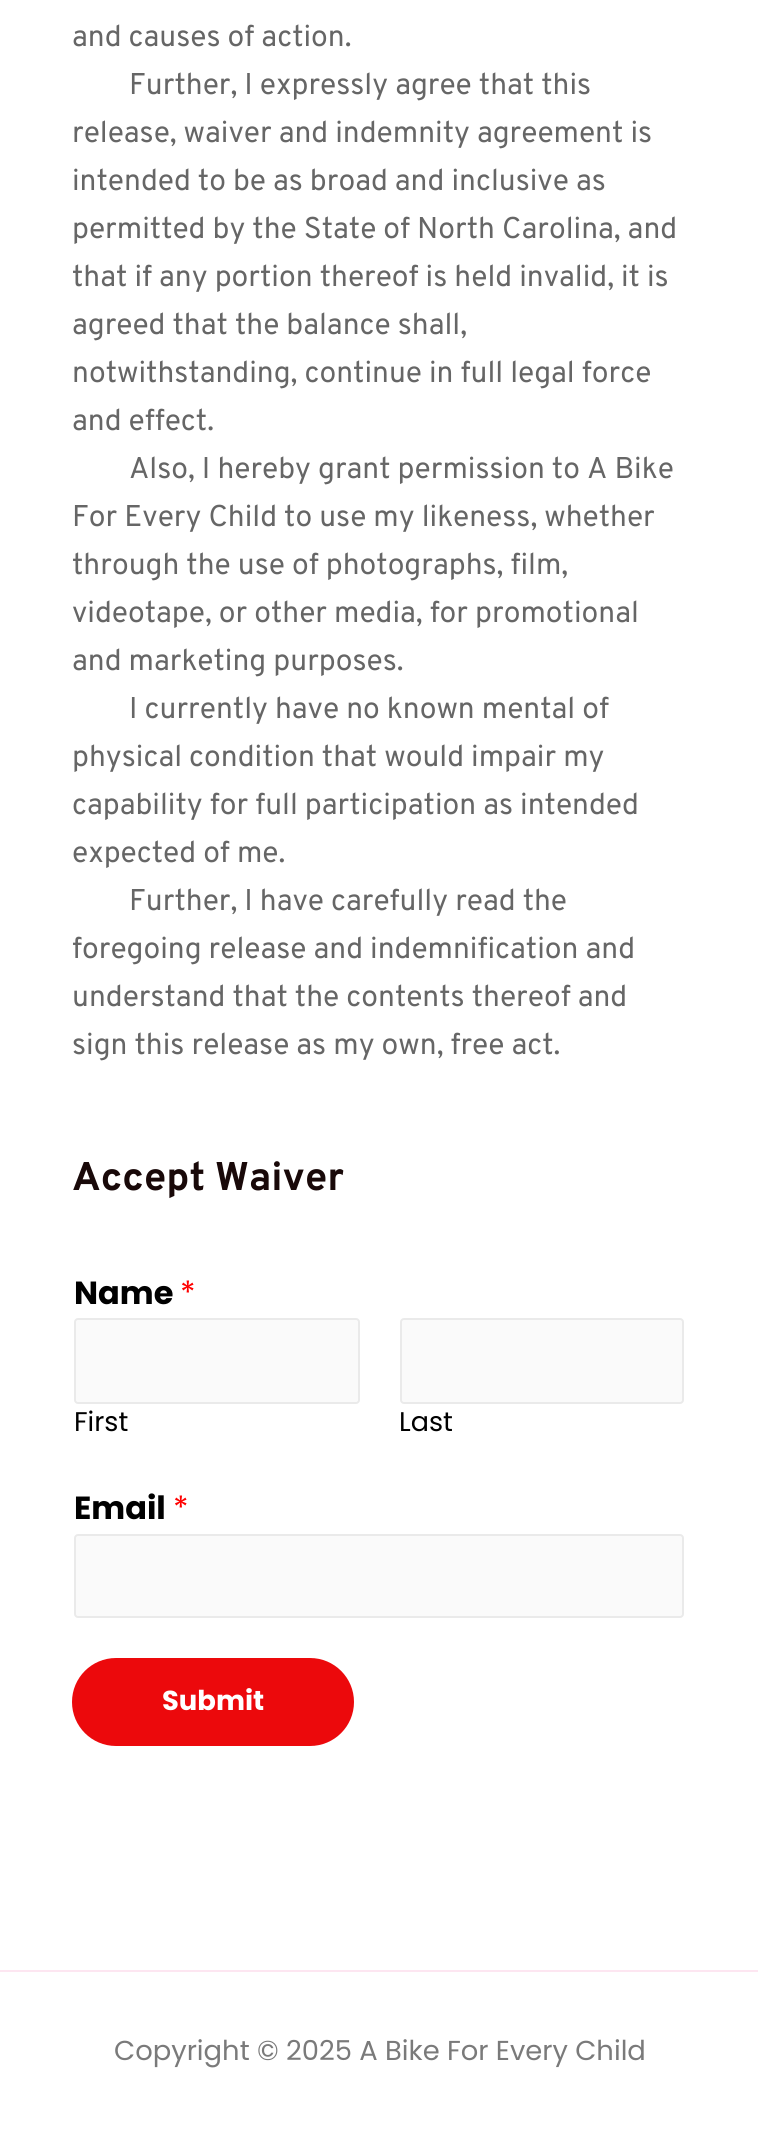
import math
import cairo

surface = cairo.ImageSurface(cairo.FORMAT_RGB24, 758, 2132)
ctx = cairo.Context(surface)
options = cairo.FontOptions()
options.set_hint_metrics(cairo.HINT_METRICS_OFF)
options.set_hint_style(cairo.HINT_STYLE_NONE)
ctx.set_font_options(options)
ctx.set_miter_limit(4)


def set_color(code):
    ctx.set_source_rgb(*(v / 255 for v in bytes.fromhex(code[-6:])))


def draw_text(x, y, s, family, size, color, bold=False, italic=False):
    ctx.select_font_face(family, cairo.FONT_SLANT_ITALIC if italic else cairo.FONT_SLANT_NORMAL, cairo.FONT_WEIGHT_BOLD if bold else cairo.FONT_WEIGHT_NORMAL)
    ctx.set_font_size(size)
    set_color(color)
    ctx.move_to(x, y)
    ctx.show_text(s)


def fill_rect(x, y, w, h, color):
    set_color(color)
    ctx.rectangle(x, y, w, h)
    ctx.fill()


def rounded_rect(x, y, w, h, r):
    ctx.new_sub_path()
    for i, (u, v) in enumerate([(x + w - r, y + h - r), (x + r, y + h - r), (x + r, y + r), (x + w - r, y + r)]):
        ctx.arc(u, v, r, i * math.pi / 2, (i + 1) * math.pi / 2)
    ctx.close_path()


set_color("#ffffff")
ctx.paint()
draw_text(72, 46, "and causes of action.", "Overpass", 30, "#666666")
draw_text(129, 94, "Further, I expressly agree that this", "Overpass", 30, "#666666")
draw_text(72, 142, "release, waiver and indemnity agreement is", "Overpass", 30, "#666666")
draw_text(72, 190, "intended to be as broad and inclusive as", "Overpass", 30, "#666666")
draw_text(72, 238, "permitted by the State of North Carolina, and", "Overpass", 30, "#666666")
draw_text(72, 286, "that if any portion thereof is held invalid, it is", "Overpass", 30, "#666666")
draw_text(72, 334, "agreed that the balance shall,", "Overpass", 30, "#666666")
draw_text(72, 382, "notwithstanding, continue in full legal force", "Overpass", 30, "#666666")
draw_text(72, 430, "and effect.", "Overpass", 30, "#666666")
draw_text(129, 478, "Also, I hereby grant permission to A Bike", "Overpass", 30, "#666666")
draw_text(72, 526, "For Every Child to use my likeness, whether", "Overpass", 30, "#666666")
draw_text(72, 574, "through the use of photographs, film,", "Overpass", 30, "#666666")
draw_text(72, 622, "videotape, or other media, for promotional", "Overpass", 30, "#666666")
draw_text(72, 670, "and marketing purposes.", "Overpass", 30, "#666666")
draw_text(129, 718, "I currently have no known mental of", "Overpass", 30, "#666666")
draw_text(72, 766, "physical condition that would impair my", "Overpass", 30, "#666666")
draw_text(72, 814, "capability for full participation as intended", "Overpass", 30, "#666666")
draw_text(72, 862, "expected of me.", "Overpass", 30, "#666666")
draw_text(129, 910, "Further, I have carefully read the", "Overpass", 30, "#666666")
draw_text(72, 958, "foregoing release and indemnification and", "Overpass", 30, "#666666")
draw_text(72, 1006, "understand that the contents thereof and", "Overpass", 30, "#666666")
draw_text(72, 1054, "sign this release as my own, free act.", "Overpass", 30, "#666666")
draw_text(72, 1190, "Accept Waiver", "Overpass", 40, "#190909", bold=True)
draw_text(74, 1304, "Name", "Poppins", 32, "#000000", bold=True)
draw_text(180, 1304, "*", "Poppins", 32, "#ff0000")
set_color("#fafafa")
rounded_rect(75, 1319, 284, 84, 3)
ctx.fill_preserve()
set_color("#eaeaea")
ctx.stroke()
draw_text(74, 1431, "First", "Poppins", 27, "#000000")
set_color("#fafafa")
rounded_rect(401, 1319, 282, 84, 3)
ctx.fill_preserve()
set_color("#eaeaea")
ctx.stroke()
draw_text(399, 1431, "Last", "Poppins", 27, "#000000")
draw_text(74, 1519, "Email", "Poppins", 32, "#000000", bold=True)
draw_text(173, 1519, "*", "Poppins", 32, "#ff0000")
set_color("#fafafa")
rounded_rect(75, 1535, 608, 82, 3)
ctx.fill_preserve()
set_color("#eaeaea")
ctx.stroke()
set_color("#ec090c")
rounded_rect(72, 1658, 282, 88, 44)
ctx.fill()
draw_text(162, 1710, "Submit", "Poppins", 27.4, "#ffffff", bold=True)
fill_rect(0, 1970, 758, 2, "#fde6f1")
draw_text(114, 2060, "Copyright © 2025 A Bike For Every Child", "Poppins", 27.4, "#7a7a7a")
surface.write_to_png("output.png")
